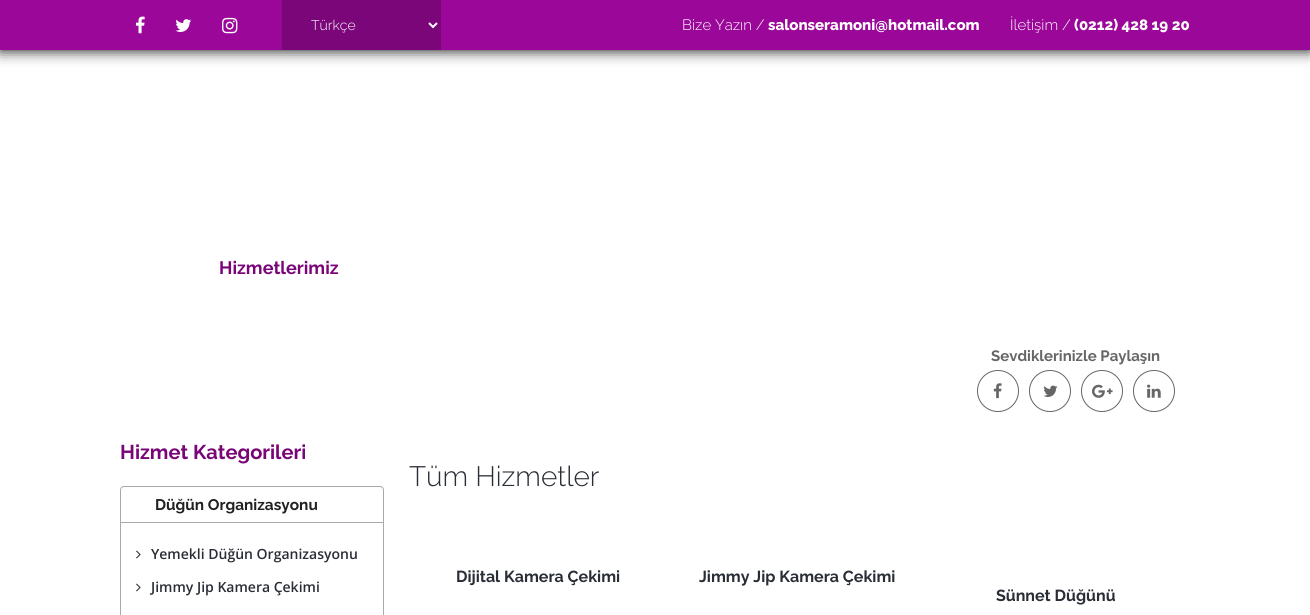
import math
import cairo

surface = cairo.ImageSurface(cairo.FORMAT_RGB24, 1310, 615)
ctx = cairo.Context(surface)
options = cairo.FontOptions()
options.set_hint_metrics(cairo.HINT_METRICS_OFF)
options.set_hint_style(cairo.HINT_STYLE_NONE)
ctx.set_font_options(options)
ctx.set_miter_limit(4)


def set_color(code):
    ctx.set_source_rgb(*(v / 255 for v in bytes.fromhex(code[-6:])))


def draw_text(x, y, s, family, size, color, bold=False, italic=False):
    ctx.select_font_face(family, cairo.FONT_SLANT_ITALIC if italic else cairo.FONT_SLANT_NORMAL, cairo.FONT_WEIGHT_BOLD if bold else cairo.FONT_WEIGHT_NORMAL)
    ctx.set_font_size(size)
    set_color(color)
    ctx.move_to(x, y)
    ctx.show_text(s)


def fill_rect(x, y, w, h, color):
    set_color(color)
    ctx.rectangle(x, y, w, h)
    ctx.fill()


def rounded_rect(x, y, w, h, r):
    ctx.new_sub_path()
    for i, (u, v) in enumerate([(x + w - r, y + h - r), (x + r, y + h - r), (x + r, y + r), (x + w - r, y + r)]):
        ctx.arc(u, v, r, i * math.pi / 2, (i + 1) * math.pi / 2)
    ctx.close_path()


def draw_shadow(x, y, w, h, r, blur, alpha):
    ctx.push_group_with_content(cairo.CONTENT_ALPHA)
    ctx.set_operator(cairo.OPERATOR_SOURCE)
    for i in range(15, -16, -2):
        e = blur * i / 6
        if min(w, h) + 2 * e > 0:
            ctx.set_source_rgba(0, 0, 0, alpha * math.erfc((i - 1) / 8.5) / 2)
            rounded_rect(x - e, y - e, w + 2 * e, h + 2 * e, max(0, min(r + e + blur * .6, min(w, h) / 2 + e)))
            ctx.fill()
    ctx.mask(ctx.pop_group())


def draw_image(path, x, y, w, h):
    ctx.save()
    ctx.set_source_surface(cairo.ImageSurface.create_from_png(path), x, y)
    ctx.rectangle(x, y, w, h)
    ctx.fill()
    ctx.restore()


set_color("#ffffff")
ctx.paint()
set_color("#000000")
draw_shadow(0, 0, 1310, 50, 0, 7.5, 1)
fill_rect(0, 0, 1310, 50, "#9a0799")
draw_image("assets/img1.png", 135, 16, 10, 18)
draw_image("assets/img2.png", 175, 19, 17, 13)
draw_image("assets/img3.png", 222, 17, 16, 17)
fill_rect(282, 0, 159, 50, "#7b067a")
ctx.new_path()
ctx.move_to(429, 23)
ctx.line_to(433, 27)
ctx.line_to(437, 23)
set_color("#ffffff")
ctx.stroke()
draw_text(311, 30, "Türkçe", "Raleway Light", 14, "#ffffff")
draw_text(682, 30, "Bize Yazın /", "Raleway Light", 15, "#ffffff")
draw_text(768, 30, "salonseramoni@hotmail.com", "Raleway ExtraBold", 15, "#ffffff")
draw_text(1010, 30, "İletişim /", "Raleway Light", 15, "#ffffff")
draw_text(1074, 30, "(0212) 428 19 20", "Raleway ExtraBold", 15, "#ffffff")
draw_text(219, 274, "Hizmetlerimiz", "Raleway", 18, "#790578", bold=True)
draw_text(991, 361, "Sevdiklerinizle Paylaşın", "Raleway", 15, "#666666", bold=True)
ctx.new_path()
ctx.arc(998, 391, 20.5, 0, 2 * math.pi)
ctx.set_line_width(1)
ctx.stroke()
draw_image("assets/img4.png", 993, 383, 9, 16)
ctx.arc(1050, 391, 20.5, 0, 2 * math.pi)
ctx.stroke()
draw_image("assets/img5.png", 1043, 385, 15, 12)
ctx.arc(1102, 391, 20.5, 0, 2 * math.pi)
ctx.stroke()
draw_image("assets/img6.png", 1092, 384, 21, 14)
ctx.arc(1154, 391, 20.5, 0, 2 * math.pi)
ctx.stroke()
draw_image("assets/img7.png", 1147, 384, 14, 14)
draw_text(120, 459, "Hizmet Kategorileri", "Raleway", 20, "#790578", bold=True)
ctx.new_path()
ctx.move_to(124, 486.5)
ctx.line_to(380, 486.5)
ctx.curve_to(382, 486.5, 383.5, 488, 383.5, 490)
ctx.line_to(383.5, 522.5)
ctx.line_to(120.5, 522.5)
ctx.line_to(120.5, 490)
ctx.curve_to(120.5, 488, 122, 486.5, 124, 486.5)
ctx.close_path()
set_color("#aaaaaa")
ctx.stroke()
draw_text(155, 510, "Düğün Organizasyonu", "Raleway", 15.4, "#212121", bold=True)
set_color("#aaaaaa")
ctx.set_fill_rule(cairo.FILL_RULE_EVEN_ODD)
ctx.new_path()
ctx.move_to(120, 523)
ctx.line_to(384, 523)
ctx.line_to(384, 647)
ctx.curve_to(384, 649, 382, 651, 380, 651)
ctx.line_to(124, 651)
ctx.curve_to(122, 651, 120, 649, 120, 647)
ctx.close_path()
ctx.move_to(121, 523)
ctx.line_to(383, 523)
ctx.line_to(383, 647)
ctx.curve_to(383, 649, 382, 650, 380, 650)
ctx.line_to(124, 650)
ctx.curve_to(122, 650, 121, 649, 121, 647)
ctx.close_path()
ctx.fill()
draw_image("assets/img8.png", 136, 550, 5, 9)
draw_text(151, 559, "Yemekli Düğün Organizasyonu", "Open Sans SemiBold", 14, "#292d35")
draw_image("assets/img8.png", 136, 583, 5, 9)
draw_text(151, 592, "Jimmy Jip Kamera Çekimi", "Open Sans SemiBold", 14, "#292d35")
draw_text(409, 486, "Tüm Hizmetler", "Raleway Light", 28, "#292d35")
draw_text(456, 582, "Dijital Kamera Çekimi", "Raleway", 16, "#292d35", bold=True)
draw_text(699, 582, "Jimmy Jip Kamera Çekimi", "Raleway", 16, "#292d35", bold=True)
draw_text(996, 601, "Sünnet Düğünü", "Raleway", 16, "#292d35", bold=True)
surface.write_to_png("output.png")
